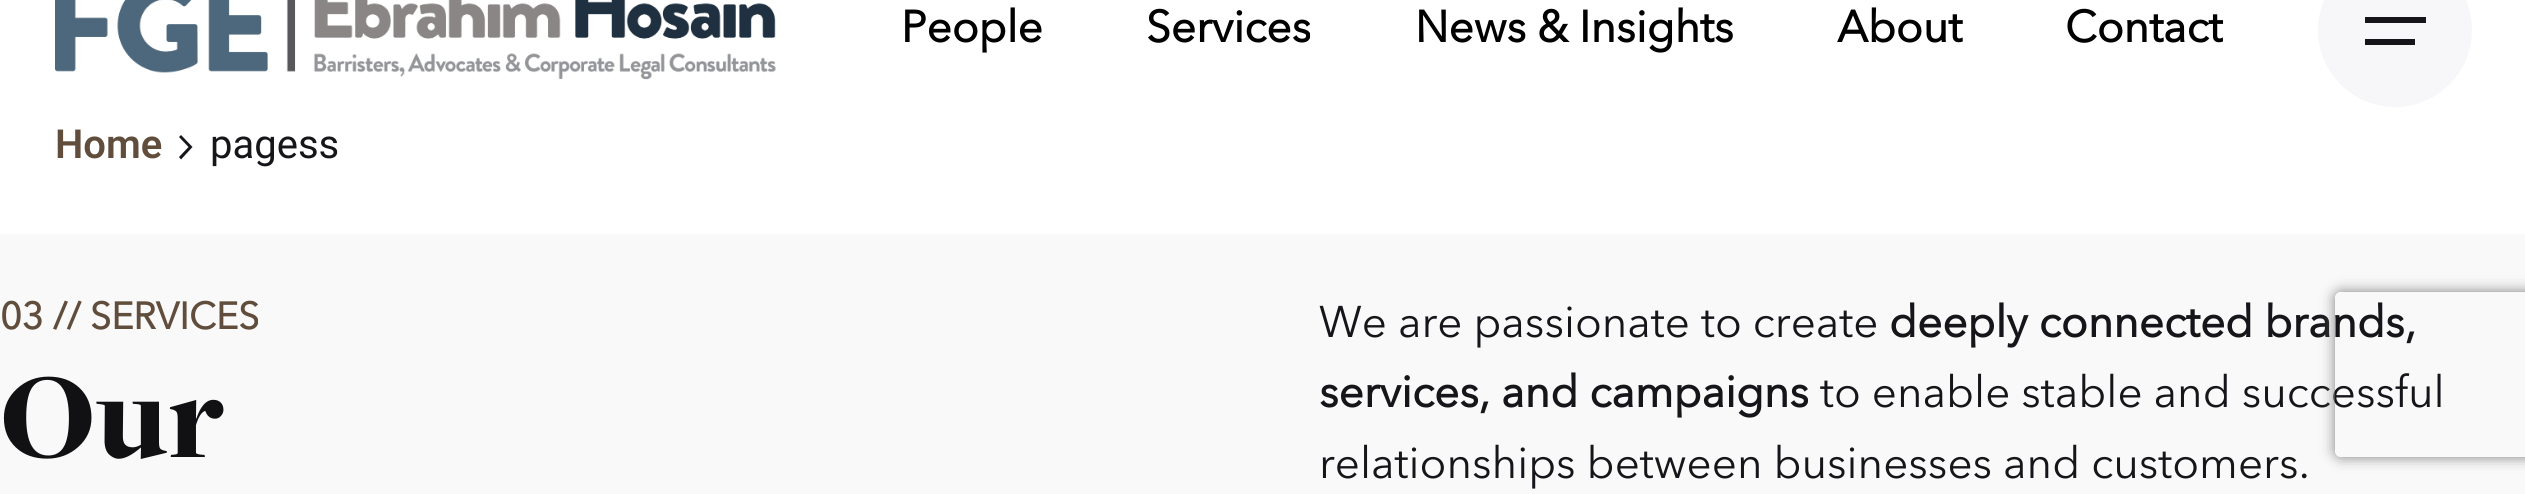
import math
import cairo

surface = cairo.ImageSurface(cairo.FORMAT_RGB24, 2525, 494)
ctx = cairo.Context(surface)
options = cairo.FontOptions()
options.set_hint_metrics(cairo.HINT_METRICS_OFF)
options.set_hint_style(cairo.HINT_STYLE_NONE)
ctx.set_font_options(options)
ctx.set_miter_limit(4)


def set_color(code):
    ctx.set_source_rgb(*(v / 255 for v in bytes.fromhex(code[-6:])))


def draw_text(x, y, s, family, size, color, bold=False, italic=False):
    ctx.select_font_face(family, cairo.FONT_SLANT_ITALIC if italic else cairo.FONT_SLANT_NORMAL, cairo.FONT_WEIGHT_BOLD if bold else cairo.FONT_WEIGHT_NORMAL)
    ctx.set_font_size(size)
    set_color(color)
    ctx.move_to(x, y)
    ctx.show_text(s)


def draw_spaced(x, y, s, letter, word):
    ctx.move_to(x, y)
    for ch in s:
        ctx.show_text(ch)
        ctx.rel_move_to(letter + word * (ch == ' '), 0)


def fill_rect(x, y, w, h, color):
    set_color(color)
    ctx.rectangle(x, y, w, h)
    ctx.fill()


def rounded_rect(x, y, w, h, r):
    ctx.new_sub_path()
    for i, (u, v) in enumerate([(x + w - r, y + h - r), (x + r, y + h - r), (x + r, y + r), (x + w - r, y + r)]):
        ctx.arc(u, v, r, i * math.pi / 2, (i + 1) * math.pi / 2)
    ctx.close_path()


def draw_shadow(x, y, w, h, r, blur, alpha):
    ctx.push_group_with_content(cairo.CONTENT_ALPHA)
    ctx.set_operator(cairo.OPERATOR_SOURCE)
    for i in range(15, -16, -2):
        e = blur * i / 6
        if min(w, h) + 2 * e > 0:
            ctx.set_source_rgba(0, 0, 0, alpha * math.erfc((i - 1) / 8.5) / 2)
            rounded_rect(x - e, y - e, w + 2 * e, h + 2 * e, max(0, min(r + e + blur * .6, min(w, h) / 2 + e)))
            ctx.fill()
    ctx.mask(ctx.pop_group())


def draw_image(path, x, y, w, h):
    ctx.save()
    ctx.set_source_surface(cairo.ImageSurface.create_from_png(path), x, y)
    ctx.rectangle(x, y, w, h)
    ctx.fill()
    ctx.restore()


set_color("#ffffff")
ctx.paint()
draw_image("assets/img1.png", 55, 0, 721, 80)
draw_text(901, 42, "People", "Avenir Next", 44, "#000000", bold=True)
draw_text(1146, 42, "Services", "Avenir Next", 44, "#000000", bold=True)
draw_text(1415, 42, "News & Insights", "Avenir Next", 44, "#000000", bold=True)
draw_text(1837, 42, "About", "Avenir Next", 44, "#000000", bold=True)
draw_text(2065, 42, "Contact", "Avenir Next", 44, "#000000", bold=True)
set_color("#f7f6f8")
ctx.new_path()
ctx.arc(2395, 30, 77, 0, 2 * math.pi)
ctx.fill()
fill_rect(2365, 17, 61, 6, "#161519")
fill_rect(2365, 39, 50, 6, "#161519")
draw_text(55, 158, "Home", "Roboto SemiBold", 40, "#604d3c")
set_color("#161519")
ctx.new_path()
ctx.move_to(179, 157)
ctx.line_to(181, 159.5)
ctx.line_to(192.5, 147)
ctx.line_to(181, 135)
ctx.line_to(179, 137)
ctx.line_to(188.5, 147)
ctx.close_path()
ctx.fill()
draw_text(210, 158, "pagess", "Roboto", 40, "#161519")
fill_rect(0, 234, 2525, 260, "#faf9fa")
draw_text(0, 329, "03 // SERVICES", "Avenir Next", 37.5, "#604d3c", bold=True)
ctx.select_font_face("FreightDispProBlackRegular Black")
ctx.set_font_size(126)
set_color("#111013")
draw_spaced(0, 457, "Our", 1, 0)
draw_text(1319, 337, "We are passionate to create", "Avenir Next", 44, "#161519")
draw_text(1889, 337, "deeply connected brands,", "Avenir Next", 44, "#161519", bold=True)
draw_text(1319, 407, "services, and campaigns", "Avenir Next", 44, "#161519", bold=True)
draw_text(1820, 407, "to enable stable and successful", "Avenir Next", 44, "#161519")
draw_text(1319, 478, "relationships between businesses and customers.", "Avenir Next", 44, "#161519")
ctx.save()
ctx.set_fill_rule(cairo.FILL_RULE_EVEN_ODD)
ctx.new_path()
ctx.move_to(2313, 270)
ctx.line_to(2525, 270)
ctx.line_to(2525, 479)
ctx.line_to(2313, 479)
ctx.close_path()
ctx.move_to(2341, 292)
ctx.line_to(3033, 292)
ctx.curve_to(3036.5, 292, 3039, 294.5, 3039, 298)
ctx.line_to(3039, 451)
ctx.curve_to(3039, 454.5, 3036.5, 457, 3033, 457)
ctx.line_to(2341, 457)
ctx.curve_to(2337.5, 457, 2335, 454.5, 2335, 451)
ctx.line_to(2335, 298)
ctx.curve_to(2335, 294.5, 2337.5, 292, 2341, 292)
ctx.close_path()
ctx.clip()
set_color("#808080")
draw_shadow(2335, 292, 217, 165, 6, 7, 1)
ctx.restore()
surface.write_to_png("output.png")
